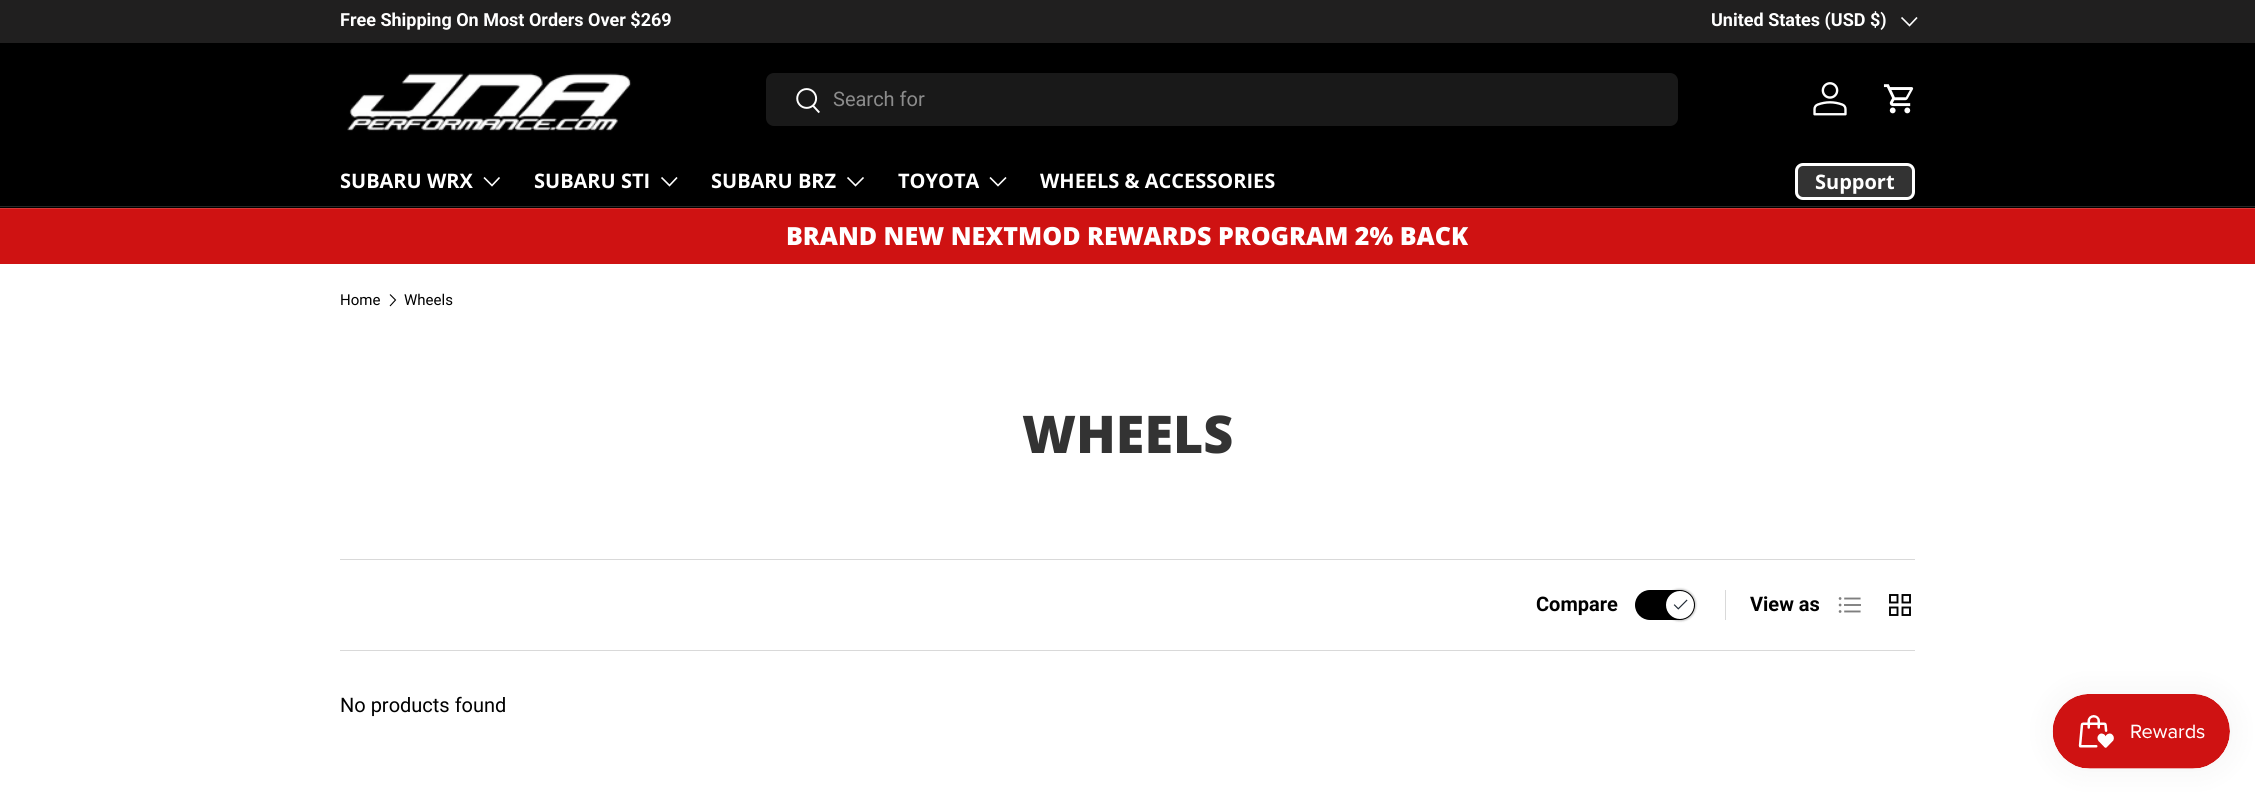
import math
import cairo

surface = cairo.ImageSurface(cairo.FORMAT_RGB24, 2255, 793)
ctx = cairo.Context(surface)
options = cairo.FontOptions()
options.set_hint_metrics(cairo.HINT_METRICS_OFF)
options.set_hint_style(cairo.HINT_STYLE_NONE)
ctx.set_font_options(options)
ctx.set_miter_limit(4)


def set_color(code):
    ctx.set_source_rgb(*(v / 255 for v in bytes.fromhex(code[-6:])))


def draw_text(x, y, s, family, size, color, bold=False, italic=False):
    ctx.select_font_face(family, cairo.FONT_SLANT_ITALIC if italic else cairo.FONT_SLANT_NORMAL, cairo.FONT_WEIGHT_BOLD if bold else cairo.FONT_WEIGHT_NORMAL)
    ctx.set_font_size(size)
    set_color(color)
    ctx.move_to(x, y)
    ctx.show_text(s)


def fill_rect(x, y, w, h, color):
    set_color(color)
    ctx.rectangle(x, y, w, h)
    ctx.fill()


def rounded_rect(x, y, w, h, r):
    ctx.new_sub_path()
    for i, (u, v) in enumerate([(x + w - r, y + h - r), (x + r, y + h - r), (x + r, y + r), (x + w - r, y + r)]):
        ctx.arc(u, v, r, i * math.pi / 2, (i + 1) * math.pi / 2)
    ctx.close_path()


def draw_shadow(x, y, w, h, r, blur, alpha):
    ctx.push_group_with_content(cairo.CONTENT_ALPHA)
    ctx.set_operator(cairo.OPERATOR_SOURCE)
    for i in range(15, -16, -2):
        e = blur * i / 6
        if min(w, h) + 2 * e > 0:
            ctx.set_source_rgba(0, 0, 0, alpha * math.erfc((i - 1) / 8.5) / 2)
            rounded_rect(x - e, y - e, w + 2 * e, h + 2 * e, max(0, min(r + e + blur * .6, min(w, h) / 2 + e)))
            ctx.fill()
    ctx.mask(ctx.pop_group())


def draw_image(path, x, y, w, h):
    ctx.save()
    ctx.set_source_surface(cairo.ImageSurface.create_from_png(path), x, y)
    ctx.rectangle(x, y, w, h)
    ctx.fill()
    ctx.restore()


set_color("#ffffff")
ctx.paint()
fill_rect(0, 0, 2255, 43, "#201f1f")
draw_text(340, 26, "Free Shipping On Most Orders Over $269", "Roboto", 18, "#ffffff", bold=True)
draw_text(1711, 26, "United States (USD $)", "Roboto", 18, "#ffffff", bold=True)
ctx.new_path()
ctx.move_to(1917, 17.5)
ctx.line_to(1909.5, 25.5)
ctx.line_to(1901.5, 17.5)
ctx.set_line_width(1.6)
ctx.stroke()
fill_rect(0, 43, 2255, 165, "#000000")
fill_rect(0, 206, 2255, 1, "#262626")
draw_image("assets/img1.png", 347, 73, 285, 59)
set_color("#191919")
rounded_rect(766, 73, 912, 53, 8)
ctx.fill()
draw_image("assets/img2.png", 796, 88, 24, 26)
draw_text(833, 106, "Search for", "Roboto", 20, "#8c8c8c")
draw_image("assets/img3.png", 1813, 82, 34, 34)
draw_image("assets/img4.png", 1883, 84, 31, 30)
draw_text(340, 188, "SUBARU WRX", "Open Sans", 20, "#ffffff", bold=True)
ctx.new_path()
ctx.move_to(499.5, 177.5)
ctx.line_to(492, 185.5)
ctx.line_to(484, 177.5)
ctx.stroke()
draw_text(534, 188, "SUBARU STI", "Open Sans", 20, "#ffffff", bold=True)
ctx.new_path()
ctx.move_to(677, 177.5)
ctx.line_to(669.5, 185.5)
ctx.line_to(661.5, 177.5)
ctx.stroke()
draw_text(711, 188, "SUBARU BRZ", "Open Sans", 20, "#ffffff", bold=True)
ctx.new_path()
ctx.move_to(863.5, 177.5)
ctx.line_to(855.5, 185.5)
ctx.line_to(847.5, 177.5)
ctx.stroke()
draw_text(898, 188, "TOYOTA", "Open Sans", 20, "#ffffff", bold=True)
ctx.new_path()
ctx.move_to(1006, 177.5)
ctx.line_to(998, 185.5)
ctx.line_to(990, 177.5)
ctx.stroke()
draw_text(1040, 188, "WHEELS & ACCESSORIES", "Open Sans", 20, "#ffffff", bold=True)
ctx.save()
rounded_rect(1795, 163, 120, 37, 8)
ctx.clip()
gradient = cairo.LinearGradient(1574, 140, 1906, 223)
gradient.add_color_stop_rgba(0.6, 0.353, 0.353, 0.353, 1)
gradient.add_color_stop_rgba(0.6, 0.2, 0.2, 0.2, 1)
gradient.add_color_stop_rgba(1, 0.2, 0.2, 0.2, 1)
ctx.set_source(gradient)
ctx.rectangle(1795, 165, 118, 33)
ctx.fill()
ctx.restore()
rounded_rect(1796.5, 164.5, 117, 34, 6.5)
ctx.set_line_width(3)
ctx.stroke()
draw_text(1815, 189, "Support", "Open Sans", 20, "#ffffff", bold=True)
fill_rect(0, 209, 2255, 55, "#cf1212")
fill_rect(0, 208, 2255, 1, "#d63636")
draw_text(786, 245, "BRAND NEW NEXTMOD REWARDS PROGRAM 2% BACK", "Open Sans ExtraBold", 25, "#ffffff")
draw_text(340, 305, "Home", "Roboto", 15, "#000000")
ctx.new_path()
ctx.move_to(390, 294.5)
ctx.line_to(395.5, 300)
ctx.line_to(390, 306)
ctx.set_line_width(1.1)
ctx.stroke()
draw_text(404, 305, "Wheels", "Roboto", 15, "#000000")
draw_text(1022, 453, "WHEELS", "Open Sans ExtraBold", 52, "#333333")
fill_rect(340, 559, 1575, 1, "#d9d9d9")
fill_rect(340, 650, 1575, 1, "#d9d9d9")
set_color("#000000")
rounded_rect(1635, 590, 60, 30, 15)
ctx.fill()
set_color("#000000")
draw_shadow(1664, 589, 32, 32, 16, 1, 0.25)
set_color("#ffffff")
ctx.arc(1680, 605, 14, 0, 2 * math.pi)
ctx.fill()
draw_image("assets/img5.png", 1673, 599, 15, 11)
draw_text(1536, 611, "Compare", "Roboto", 20, "#000000", bold=True)
fill_rect(1725, 590, 1, 30, "#d9d9d9")
draw_text(1750, 611, "View as", "Roboto", 20, "#000000", bold=True)
draw_image("assets/img6.png", 1838, 597, 23, 16)
draw_image("assets/img7.png", 1889, 594, 22, 22)
draw_text(340, 712, "No products found", "Roboto", 20, "#000000")
set_color("#000000")
draw_shadow(2053, 694, 177, 75, 37.5, 15.5, 0.05)
draw_image("assets/img8.png", 2052, 694, 178, 75)
surface.write_to_png("output.png")
